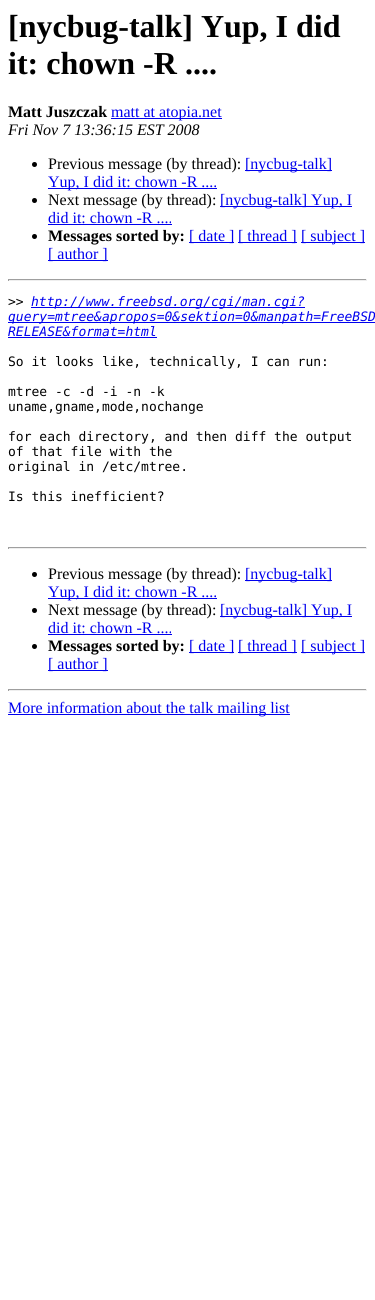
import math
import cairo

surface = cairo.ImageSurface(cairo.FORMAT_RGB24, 375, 1300)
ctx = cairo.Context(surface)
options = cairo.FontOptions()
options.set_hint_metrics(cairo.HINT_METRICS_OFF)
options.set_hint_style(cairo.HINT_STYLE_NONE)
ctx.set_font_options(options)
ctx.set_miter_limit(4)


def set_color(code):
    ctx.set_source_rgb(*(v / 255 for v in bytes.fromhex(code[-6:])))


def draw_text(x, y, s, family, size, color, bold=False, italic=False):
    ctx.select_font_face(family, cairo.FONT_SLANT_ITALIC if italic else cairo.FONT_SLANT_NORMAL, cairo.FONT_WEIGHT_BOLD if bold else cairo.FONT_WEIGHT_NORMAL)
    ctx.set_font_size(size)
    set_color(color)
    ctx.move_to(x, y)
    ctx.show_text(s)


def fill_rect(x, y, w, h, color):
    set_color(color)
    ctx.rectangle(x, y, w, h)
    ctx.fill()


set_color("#ffffff")
ctx.paint()
draw_text(8, 37, "[nycbug-talk] Yup, I did", "Liberation Serif", 32, "#000000", bold=True)
draw_text(8, 74, "it: chown -R ....", "Liberation Serif", 32, "#000000", bold=True)
draw_text(8, 117, "Matt Juszczak", "Liberation Serif", 16, "#000000", bold=True)
fill_rect(111, 118, 111, 1, "#0000ee")
draw_text(111, 117, "matt at atopia.net", "Liberation Serif", 16, "#0000ee")
draw_text(8, 135, "Fri Nov 7 13:36:15 EST 2008", "Liberation Serif", 16, "#000000", italic=True)
ctx.new_path()
ctx.arc(34.5, 164.5, 2.5, 0, 2 * math.pi)
ctx.fill()
draw_text(48, 169, "Previous message (by thread):", "Liberation Serif", 16, "#000000")
fill_rect(245, 170, 87, 1, "#0000ee")
draw_text(245, 169, "[nycbug-talk]", "Liberation Serif", 16, "#0000ee")
fill_rect(48, 188, 169, 1, "#0000ee")
draw_text(48, 187, "Yup, I did it: chown -R ....", "Liberation Serif", 16, "#0000ee")
set_color("#000000")
ctx.new_path()
ctx.arc(34.5, 200.5, 2.5, 0, 2 * math.pi)
ctx.fill()
draw_text(48, 205, "Next message (by thread):", "Liberation Serif", 16, "#000000")
fill_rect(220, 206, 132, 1, "#0000ee")
draw_text(220, 205, "[nycbug-talk] Yup, I", "Liberation Serif", 16, "#0000ee")
draw_text(48, 223, "did it: chown -R ....", "Liberation Serif", 16, "#0000ee")
fill_rect(48, 224, 124, 1, "#0000ee")
set_color("#000000")
ctx.new_path()
ctx.arc(34.5, 236.5, 2.5, 0, 2 * math.pi)
ctx.fill()
draw_text(48, 241, "Messages sorted by:", "Liberation Serif", 16, "#000000", bold=True)
fill_rect(189, 242, 45, 1, "#0000ee")
draw_text(189, 241, "[ date ]", "Liberation Serif", 16, "#0000ee")
fill_rect(238, 242, 59, 1, "#0000ee")
draw_text(238, 241, "[ thread ]", "Liberation Serif", 16, "#0000ee")
fill_rect(301, 242, 64, 1, "#0000ee")
draw_text(301, 241, "[ subject ]", "Liberation Serif", 16, "#0000ee")
fill_rect(48, 260, 60, 1, "#0000ee")
draw_text(48, 259, "[ author ]", "Liberation Serif", 16, "#0000ee")
fill_rect(8, 279, 359, 1, "#9f9f9f")
fill_rect(366, 279, 1, 2, "#eeeeee")
fill_rect(8, 280, 359, 1, "#eeeeee")
fill_rect(8, 279, 1, 2, "#9f9f9f")
draw_text(8, 306, ">>", "DejaVu Sans Mono", 13, "#000000")
fill_rect(31, 307, 274, 1, "#0000ee")
draw_text(31, 306, "http://www.freebsd.org/cgi/man.cgi?", "DejaVu Sans Mono", 13, "#0000ee", italic=True)
fill_rect(8, 322, 367, 1, "#0000ee")
draw_text(8, 321, "query=mtree&apropos=0&sektion=0&manpath=FreeBSD", "DejaVu Sans Mono", 13, "#0000ee", italic=True)
draw_text(8, 336, "RELEASE&format=html", "DejaVu Sans Mono", 13, "#0000ee", italic=True)
fill_rect(8, 337, 149, 1, "#0000ee")
draw_text(8, 366, "So it looks like, technically, I can run:", "DejaVu Sans Mono", 13, "#000000")
draw_text(8, 396, "mtree -c -d -i -n -k", "DejaVu Sans Mono", 13, "#000000")
draw_text(8, 411, "uname,gname,mode,nochange", "DejaVu Sans Mono", 13, "#000000")
draw_text(8, 441, "for each directory, and then diff the output", "DejaVu Sans Mono", 13, "#000000")
draw_text(8, 456, "of that file with the", "DejaVu Sans Mono", 13, "#000000")
draw_text(8, 471, "original in /etc/mtree.", "DejaVu Sans Mono", 13, "#000000")
draw_text(8, 501, "Is this inefficient?", "DejaVu Sans Mono", 13, "#000000")
fill_rect(8, 547, 359, 1, "#9f9f9f")
fill_rect(366, 547, 1, 2, "#eeeeee")
fill_rect(8, 548, 359, 1, "#eeeeee")
fill_rect(8, 547, 1, 2, "#9f9f9f")
set_color("#000000")
ctx.new_path()
ctx.arc(34.5, 574.5, 2.5, 0, 2 * math.pi)
ctx.fill()
draw_text(48, 579, "Previous message (by thread):", "Liberation Serif", 16, "#000000")
fill_rect(245, 580, 87, 1, "#0000ee")
draw_text(245, 579, "[nycbug-talk]", "Liberation Serif", 16, "#0000ee")
fill_rect(48, 598, 169, 1, "#0000ee")
draw_text(48, 597, "Yup, I did it: chown -R ....", "Liberation Serif", 16, "#0000ee")
set_color("#000000")
ctx.new_path()
ctx.arc(34.5, 610.5, 2.5, 0, 2 * math.pi)
ctx.fill()
draw_text(48, 615, "Next message (by thread):", "Liberation Serif", 16, "#000000")
fill_rect(220, 616, 132, 1, "#0000ee")
draw_text(220, 615, "[nycbug-talk] Yup, I", "Liberation Serif", 16, "#0000ee")
draw_text(48, 633, "did it: chown -R ....", "Liberation Serif", 16, "#0000ee")
fill_rect(48, 634, 124, 1, "#0000ee")
set_color("#000000")
ctx.new_path()
ctx.arc(34.5, 646.5, 2.5, 0, 2 * math.pi)
ctx.fill()
draw_text(48, 651, "Messages sorted by:", "Liberation Serif", 16, "#000000", bold=True)
fill_rect(189, 652, 45, 1, "#0000ee")
draw_text(189, 651, "[ date ]", "Liberation Serif", 16, "#0000ee")
fill_rect(238, 652, 59, 1, "#0000ee")
draw_text(238, 651, "[ thread ]", "Liberation Serif", 16, "#0000ee")
fill_rect(301, 652, 64, 1, "#0000ee")
draw_text(301, 651, "[ subject ]", "Liberation Serif", 16, "#0000ee")
fill_rect(48, 670, 60, 1, "#0000ee")
draw_text(48, 669, "[ author ]", "Liberation Serif", 16, "#0000ee")
fill_rect(8, 689, 359, 1, "#9f9f9f")
fill_rect(366, 689, 1, 2, "#eeeeee")
fill_rect(8, 690, 359, 1, "#eeeeee")
fill_rect(8, 689, 1, 2, "#9f9f9f")
fill_rect(8, 714, 282, 1, "#0000ee")
draw_text(8, 713, "More information about the talk mailing list", "Liberation Serif", 16, "#0000ee")
surface.write_to_png("output.png")
